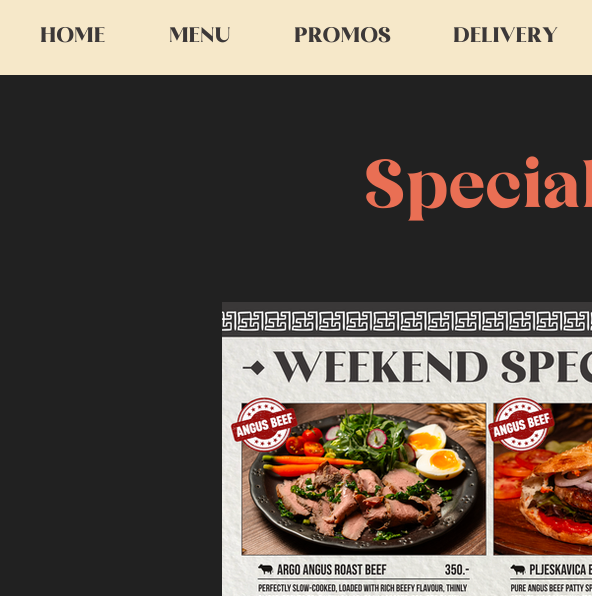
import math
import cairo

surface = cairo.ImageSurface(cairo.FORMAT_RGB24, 592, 596)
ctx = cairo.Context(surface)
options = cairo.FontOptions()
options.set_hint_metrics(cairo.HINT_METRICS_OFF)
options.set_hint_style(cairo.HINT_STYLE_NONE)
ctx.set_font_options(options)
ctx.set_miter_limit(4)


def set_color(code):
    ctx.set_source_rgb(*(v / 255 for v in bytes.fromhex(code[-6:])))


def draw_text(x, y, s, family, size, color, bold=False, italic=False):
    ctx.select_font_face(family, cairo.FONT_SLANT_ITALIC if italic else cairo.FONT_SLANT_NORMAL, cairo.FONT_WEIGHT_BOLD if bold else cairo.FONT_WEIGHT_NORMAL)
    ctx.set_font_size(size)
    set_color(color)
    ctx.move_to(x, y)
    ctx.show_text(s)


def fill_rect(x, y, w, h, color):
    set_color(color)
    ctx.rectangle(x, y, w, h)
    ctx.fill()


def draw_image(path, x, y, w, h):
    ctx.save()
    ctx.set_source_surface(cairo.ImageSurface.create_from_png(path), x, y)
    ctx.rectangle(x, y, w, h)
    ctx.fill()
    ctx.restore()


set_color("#212121")
ctx.paint()
fill_rect(0, 0, 592, 75, "#f6e8c9")
draw_text(40, 42, "HOME", "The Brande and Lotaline", 22, "#3c3838")
draw_text(169, 42, "MENU", "The Brande and Lotaline", 22, "#3c3838")
draw_text(294, 42, "PROMOS", "The Brande and Lotaline", 22, "#3c3838")
draw_text(453, 42, "DELIVERY", "The Brande and Lotaline", 22, "#3c3838")
draw_text(364, 207, "Special", "The Brande and Lotaline", 70, "#e96f54")
draw_image("assets/img1.png", 222, 302, 370, 294)
surface.write_to_png("output.png")
